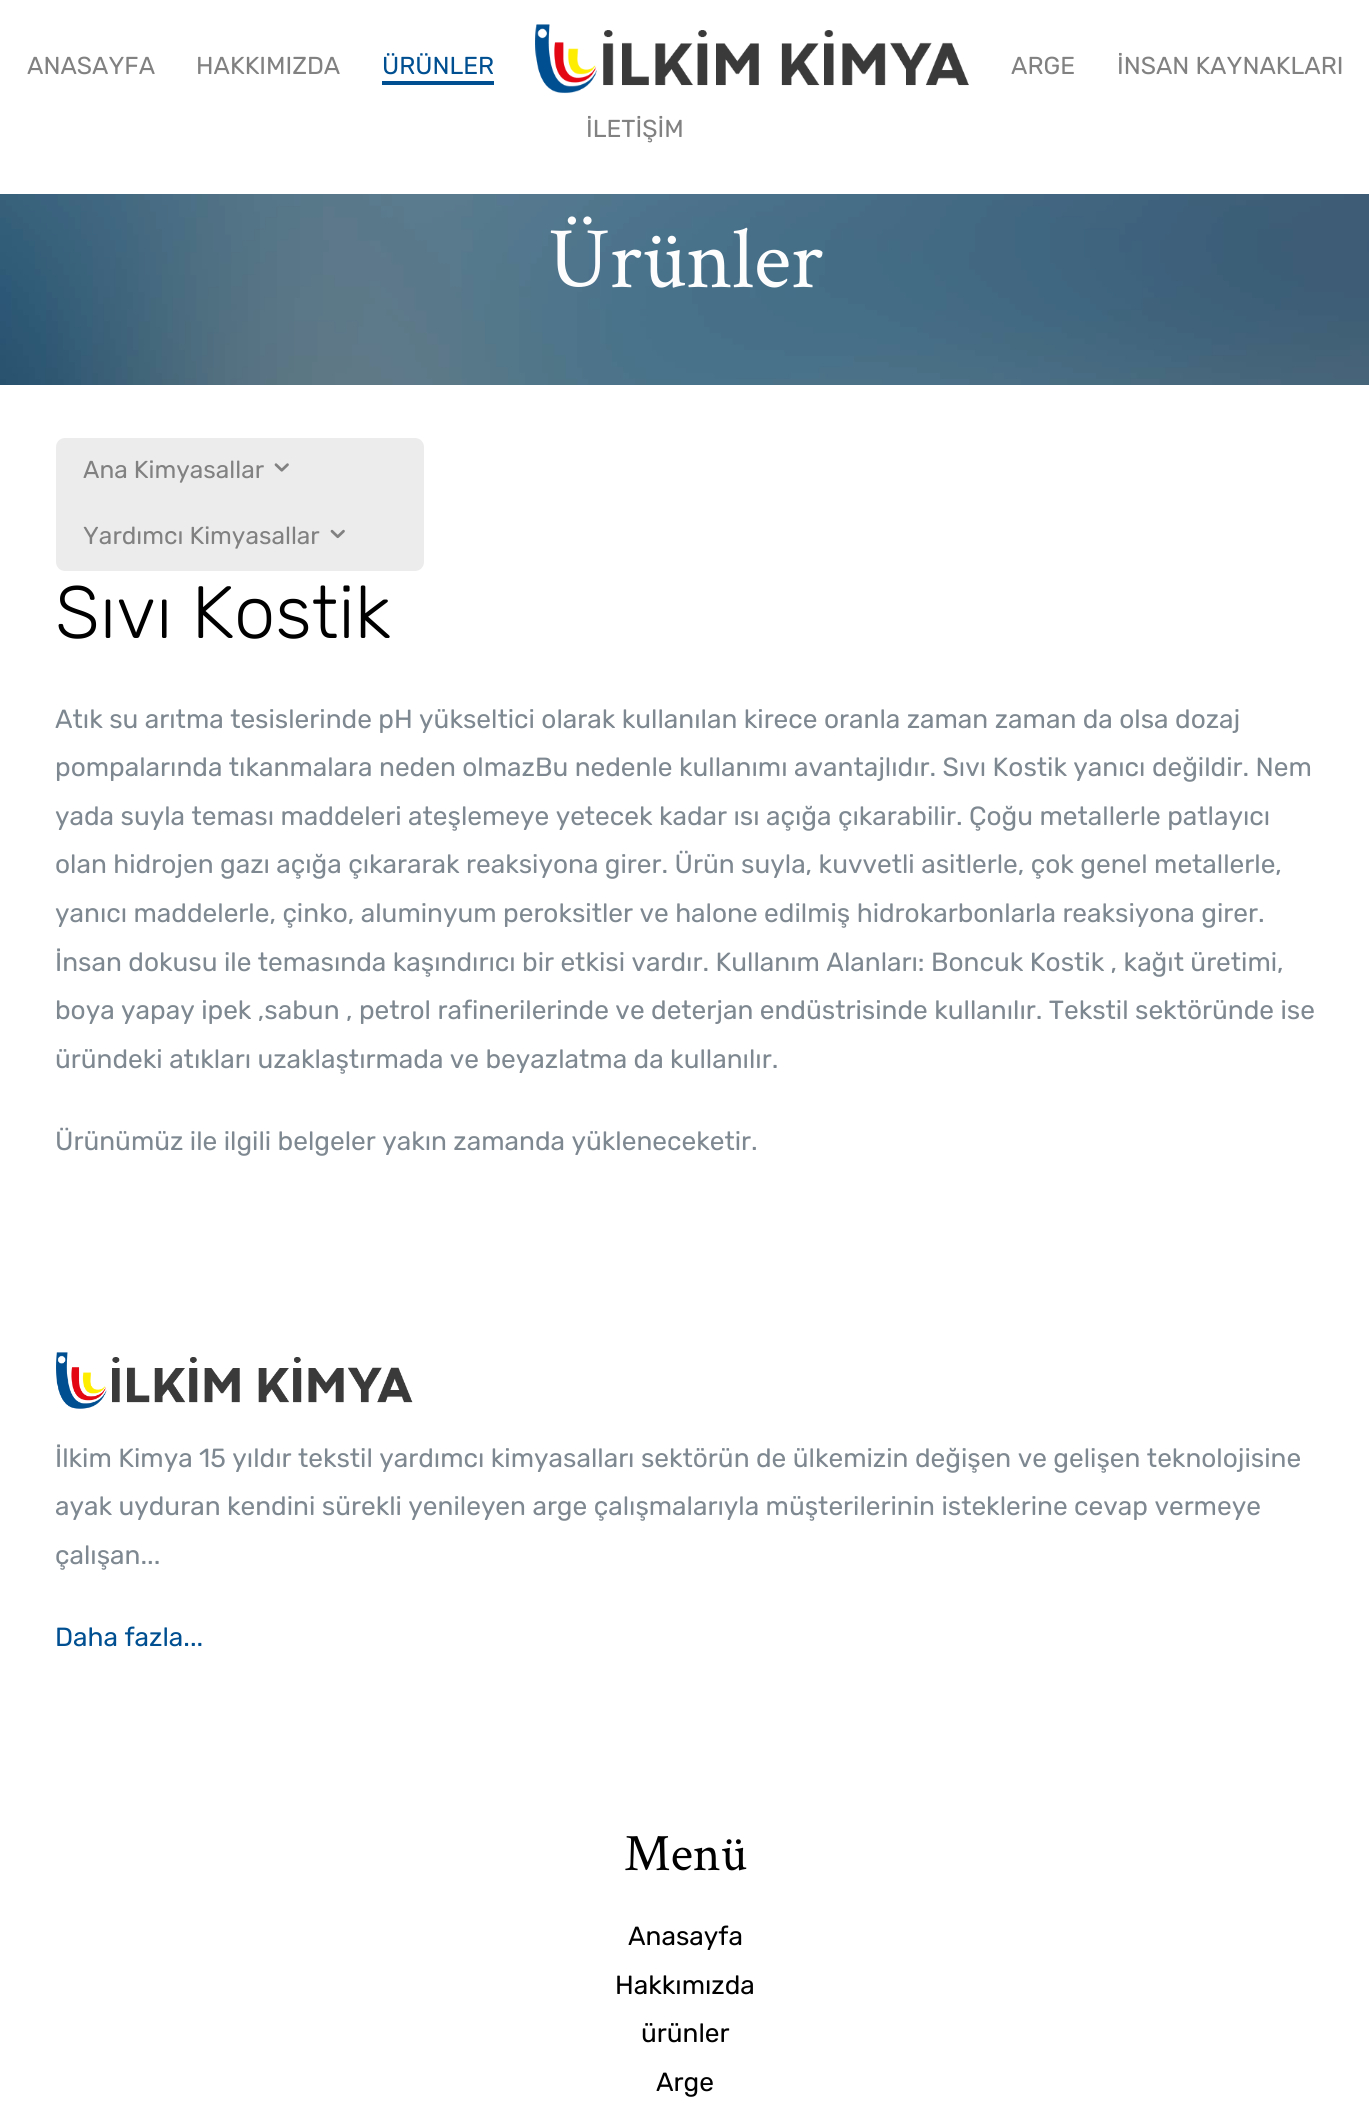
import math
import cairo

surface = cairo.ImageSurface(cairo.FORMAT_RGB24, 1369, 2127)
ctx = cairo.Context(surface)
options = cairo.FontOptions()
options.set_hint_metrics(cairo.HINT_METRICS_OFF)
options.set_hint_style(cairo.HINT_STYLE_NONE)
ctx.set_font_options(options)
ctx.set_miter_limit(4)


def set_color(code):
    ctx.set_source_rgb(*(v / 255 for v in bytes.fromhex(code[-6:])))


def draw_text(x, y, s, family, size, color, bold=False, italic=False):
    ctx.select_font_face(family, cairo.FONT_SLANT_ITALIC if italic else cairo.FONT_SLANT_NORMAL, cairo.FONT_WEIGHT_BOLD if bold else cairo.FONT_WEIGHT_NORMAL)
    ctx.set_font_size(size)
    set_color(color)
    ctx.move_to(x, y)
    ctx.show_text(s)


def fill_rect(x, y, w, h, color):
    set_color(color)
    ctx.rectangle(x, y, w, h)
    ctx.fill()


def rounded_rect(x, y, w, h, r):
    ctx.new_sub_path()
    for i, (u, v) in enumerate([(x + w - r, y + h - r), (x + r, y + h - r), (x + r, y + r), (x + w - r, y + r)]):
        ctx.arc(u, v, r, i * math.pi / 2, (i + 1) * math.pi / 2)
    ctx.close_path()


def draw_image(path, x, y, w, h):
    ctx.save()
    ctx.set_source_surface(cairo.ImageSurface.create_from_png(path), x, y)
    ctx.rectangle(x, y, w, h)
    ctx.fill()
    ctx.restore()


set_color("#ffffff")
ctx.paint()
draw_text(27, 74, "ANASAYFA", "Rubik", 24.5, "#818181")
draw_text(196, 74, "HAKKIMIZDA", "Rubik", 24.5, "#818181")
draw_text(382, 74, "ÜRÜNLER", "Rubik", 24.5, "#004f91")
fill_rect(382, 81, 112, 4, "#004f91")
draw_image("assets/img1.png", 535, 24, 434, 70)
draw_text(1011, 74, "ARGE", "Rubik", 24.5, "#818181")
draw_text(1117, 74, "İNSAN KAYNAKLARI", "Rubik", 24.5, "#818181")
draw_text(586, 137, "İLETİŞİM", "Rubik", 24.5, "#818181")
draw_image("assets/img2.png", 0, 194, 1369, 191)
draw_text(548, 287, "Ürünler", "Crimson Text", 87.5, "#fdfdfe")
set_color("#ececec")
rounded_rect(56, 438, 368, 133, 9)
ctx.fill()
draw_text(83, 478, "Ana Kimyasallar", "Rubik", 24.5, "#818181")
draw_image("assets/img3.png", 274, 463, 15, 9)
draw_text(83, 544, "Yardımcı Kimyasallar", "Rubik", 24.5, "#818181")
draw_image("assets/img4.png", 330, 529, 15, 10)
draw_text(55, 638, "Sıvı Kostik", "Rubik Light", 74, "#000000")
draw_text(55, 728, "Atık su arıtma tesislerinde pH yükseltici olarak kullanılan kirece oranla zaman zaman da olsa dozaj", "Rubik", 26.25, "#7e8890")
draw_text(55, 776, "pompalarında tıkanmalara neden olmazBu nedenle kullanımı avantajlıdır. Sıvı Kostik yanıcı değildir. Nem", "Rubik", 26.25, "#7e8890")
draw_text(55, 825, "yada suyla teması maddeleri ateşlemeye yetecek kadar ısı açığa çıkarabilir. Çoğu metallerle patlayıcı", "Rubik", 26.25, "#7e8890")
draw_text(55, 873, "olan hidrojen gazı açığa çıkararak reaksiyona girer. Ürün suyla, kuvvetli asitlerle, çok genel metallerle,", "Rubik", 26.25, "#7e8890")
draw_text(55, 922, "yanıcı maddelerle, çinko, aluminyum peroksitler ve halone edilmiş hidrokarbonlarla reaksiyona girer.", "Rubik", 26.25, "#7e8890")
draw_text(55, 971, "İnsan dokusu ile temasında kaşındırıcı bir etkisi vardır. Kullanım Alanları: Boncuk Kostik , kağıt üretimi,", "Rubik", 26.25, "#7e8890")
draw_text(55, 1019, "boya yapay ipek ,sabun , petrol rafinerilerinde ve deterjan endüstrisinde kullanılır. Tekstil sektöründe ise", "Rubik", 26.25, "#7e8890")
draw_text(55, 1068, "üründeki atıkları uzaklaştırmada ve beyazlatma da kullanılır.", "Rubik", 26.25, "#7e8890")
draw_text(55, 1150, "Ürünümüz ile ilgili belgeler yakın zamanda yükleneceketir.", "Rubik", 26.25, "#7e8890")
draw_image("assets/img5.png", 56, 1352, 357, 57)
draw_text(55, 1467, "İlkim Kimya 15 yıldır tekstil yardımcı kimyasalları sektörün de ülkemizin değişen ve gelişen teknolojisine", "Rubik", 26.25, "#7e8890")
draw_text(55, 1515, "ayak uyduran kendini sürekli yenileyen arge çalışmalarıyla müşterilerinin isteklerine cevap vermeye", "Rubik", 26.25, "#7e8890")
draw_text(55, 1564, "çalışan...", "Rubik", 26.25, "#7e8890")
draw_text(55, 1646, "Daha fazla...", "Rubik", 26.25, "#004f91")
draw_text(624, 1870, "Menü", "Crimson Text", 52.5, "#000000")
draw_text(628, 1945, "Anasayfa", "Rubik", 26.25, "#000000")
draw_text(615, 1994, "Hakkımızda", "Rubik", 26.25, "#000000")
draw_text(641, 2042, "ürünler", "Rubik", 26.25, "#000000")
draw_text(656, 2091, "Arge", "Rubik", 26.25, "#000000")
surface.write_to_png("output.png")
